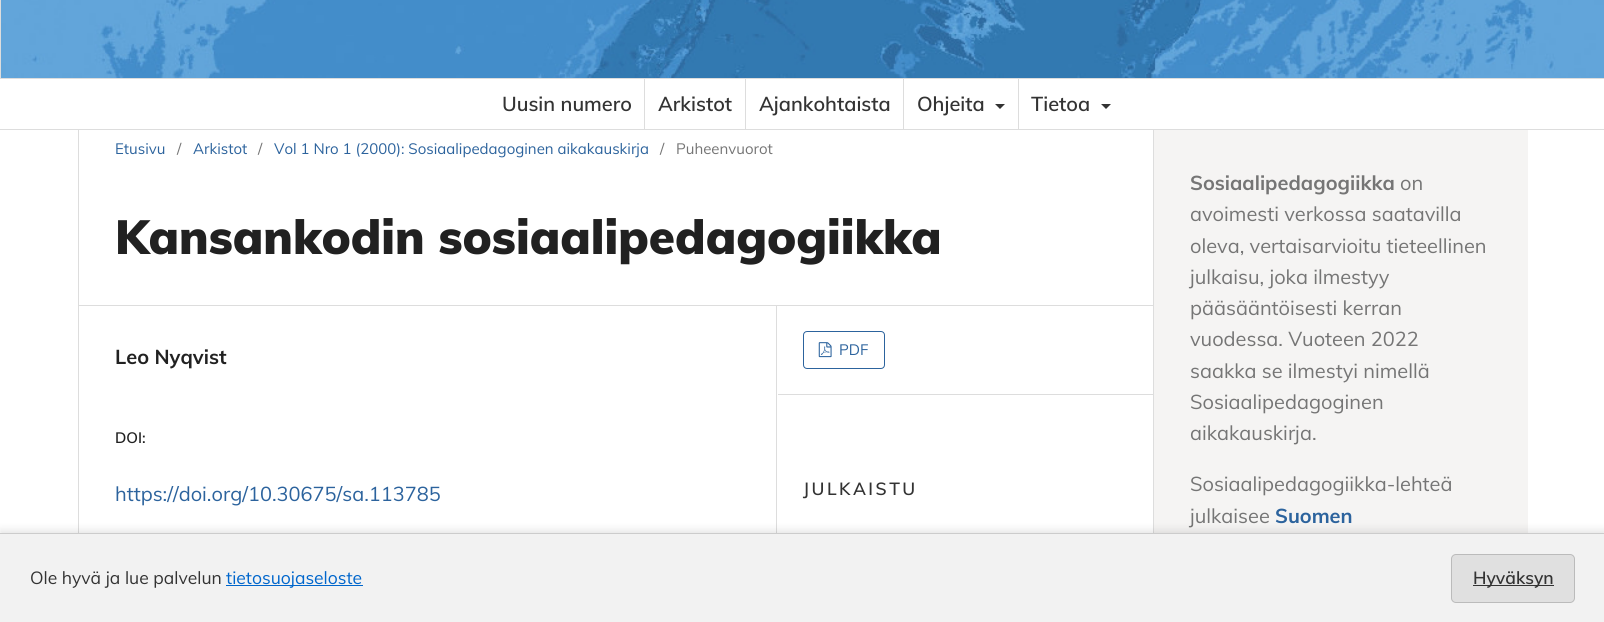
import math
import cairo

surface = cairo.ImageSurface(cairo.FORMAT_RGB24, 1604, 622)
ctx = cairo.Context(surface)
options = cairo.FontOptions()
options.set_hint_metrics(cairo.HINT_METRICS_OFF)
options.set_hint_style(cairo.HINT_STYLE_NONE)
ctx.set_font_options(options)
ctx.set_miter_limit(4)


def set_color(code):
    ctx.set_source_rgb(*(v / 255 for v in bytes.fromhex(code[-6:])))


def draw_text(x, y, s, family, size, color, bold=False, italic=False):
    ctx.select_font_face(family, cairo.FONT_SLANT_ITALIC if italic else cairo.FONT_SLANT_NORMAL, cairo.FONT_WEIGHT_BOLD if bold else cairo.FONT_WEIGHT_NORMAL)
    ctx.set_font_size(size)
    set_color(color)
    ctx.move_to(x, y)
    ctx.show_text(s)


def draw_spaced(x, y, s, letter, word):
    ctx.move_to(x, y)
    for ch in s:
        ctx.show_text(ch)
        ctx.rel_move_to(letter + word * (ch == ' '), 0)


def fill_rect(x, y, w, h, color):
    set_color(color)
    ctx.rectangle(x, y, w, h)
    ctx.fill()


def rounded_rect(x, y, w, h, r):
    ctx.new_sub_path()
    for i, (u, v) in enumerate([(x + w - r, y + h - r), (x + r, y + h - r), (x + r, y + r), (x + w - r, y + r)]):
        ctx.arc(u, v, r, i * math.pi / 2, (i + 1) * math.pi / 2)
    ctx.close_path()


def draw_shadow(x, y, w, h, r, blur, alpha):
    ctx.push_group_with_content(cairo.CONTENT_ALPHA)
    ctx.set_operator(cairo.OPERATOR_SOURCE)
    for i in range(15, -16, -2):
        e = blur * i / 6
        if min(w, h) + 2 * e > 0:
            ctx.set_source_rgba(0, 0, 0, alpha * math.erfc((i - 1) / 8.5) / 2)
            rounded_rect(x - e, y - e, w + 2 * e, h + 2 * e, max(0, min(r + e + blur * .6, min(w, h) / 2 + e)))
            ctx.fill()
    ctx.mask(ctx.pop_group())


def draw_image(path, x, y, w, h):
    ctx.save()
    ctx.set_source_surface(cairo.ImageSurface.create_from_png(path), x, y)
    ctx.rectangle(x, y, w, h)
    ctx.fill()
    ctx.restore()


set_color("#ffffff")
ctx.paint()
draw_image("assets/img1.png", 1, 0, 1603, 78)
ctx.rectangle(0.5, -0.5, 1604, 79)
set_color("#dddddd")
ctx.set_line_width(1)
ctx.stroke()
fill_rect(0, 129, 1604, 1, "#dddddd")
fill_rect(644, 79, 1, 50, "#dddddd")
draw_text(502, 111, "Uusin numero", "Muli SemiBold", 20, "#333333")
fill_rect(745, 79, 1, 50, "#dddddd")
draw_text(658, 111, "Arkistot", "Muli SemiBold", 20, "#333333")
fill_rect(903, 79, 1, 50, "#dddddd")
draw_text(759, 111, "Ajankohtaista", "Muli SemiBold", 20, "#333333")
fill_rect(1018, 79, 1, 50, "#dddddd")
draw_text(917, 111, "Ohjeita", "Muli SemiBold", 20, "#333333")
ctx.new_path()
ctx.move_to(995, 104)
ctx.line_to(1005, 104)
ctx.line_to(1000, 109)
ctx.close_path()
ctx.fill()
draw_text(1031, 111, "Tietoa", "Muli SemiBold", 20, "#333333")
ctx.new_path()
ctx.move_to(1101, 104)
ctx.line_to(1111, 104)
ctx.line_to(1106, 109)
ctx.close_path()
ctx.fill()
fill_rect(78, 305, 1075, 1, "#dddddd")
fill_rect(78, 130, 1, 403, "#dddddd")
draw_text(115, 154, "Etusivu", "Muli", 15, "#2c639d")
draw_text(177, 154, "/", "Muli", 15, "#757575")
draw_text(193, 154, "Arkistot", "Muli", 15, "#2c639d")
draw_text(258, 154, "/", "Muli", 15, "#757575")
draw_text(274, 154, "Vol 1 Nro 1 (2000): Sosiaalipedagoginen aikakauskirja", "Muli", 15, "#2c639d")
draw_text(660, 154, "/", "Muli", 15, "#757575")
draw_text(676, 154, "Puheenvuorot", "Muli", 15, "#757575")
draw_text(115, 254, "Kansankodin sosiaalipedagogiikka", "Muli Black", 47.5, "#212121")
draw_text(115, 364, "Leo Nyqvist", "Muli", 20, "#212121", bold=True)
draw_text(115, 443, "DOI:", "Muli SemiBold", 15, "#212121")
draw_text(115, 501, "https://doi.org/10.30675/sa.113785", "Muli", 20, "#2c639d")
fill_rect(776, 306, 1, 227, "#dddddd")
fill_rect(778, 394, 375, 1, "#dddddd")
rounded_rect(803.5, 331.5, 81, 37, 3.5)
set_color("#2c639d")
ctx.stroke()
draw_image("assets/img2.png", 818, 342, 14, 16)
draw_text(839, 355, "PDF", "Muli", 15, "#2c639d")
ctx.select_font_face("Muli SemiBold")
ctx.set_font_size(17.5)
set_color("#333333")
draw_spaced(803, 495, "JULKAISTU", 2.5, 0)
fill_rect(1153, 130, 1, 403, "#dddddd")
fill_rect(1154, 130, 374, 403, "#f5f4f3")
draw_text(1190, 190, "Sosiaalipedagogiikka", "Muli", 20, "#757575", bold=True)
draw_text(1400, 190, "on", "Muli", 20, "#757575")
draw_text(1190, 221, "avoimesti verkossa saatavilla", "Muli", 20, "#757575")
draw_text(1190, 253, "oleva, vertaisarvioitu tieteellinen", "Muli", 20, "#757575")
draw_text(1190, 284, "julkaisu, joka ilmestyy", "Muli", 20, "#757575")
draw_text(1190, 315, "pääsääntöisesti kerran", "Muli", 20, "#757575")
draw_text(1190, 346, "vuodessa. Vuoteen 2022", "Muli", 20, "#757575")
draw_text(1190, 378, "saakka se ilmestyi nimellä", "Muli", 20, "#757575")
draw_text(1190, 409, "Sosiaalipedagoginen", "Muli", 20, "#757575")
draw_text(1190, 440, "aikakauskirja.", "Muli", 20, "#757575")
draw_text(1190, 491, "Sosiaalipedagogiikka-lehteä", "Muli", 20, "#757575")
draw_text(1190, 523, "julkaisee", "Muli", 20, "#757575")
draw_text(1275, 523, "Suomen", "Muli", 20, "#2c639d", bold=True)
set_color("#000000")
draw_shadow(0, 530, 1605, 90, 0, 4, 0.1)
fill_rect(0, 534, 1604, 88, "#f2f2f2")
fill_rect(0, 533, 1604, 1, "#cccccc")
draw_text(30, 584, "Ole hyvä ja lue palvelun", "Muli", 17.5, "#333333")
fill_rect(226, 585, 137, 1, "#0066cc")
draw_text(226, 584, "tietosuojaseloste", "Muli", 17.5, "#0066cc")
set_color("#e0e0e0")
rounded_rect(1451.5, 554.5, 123, 48, 4.5)
ctx.fill_preserve()
set_color("#bbbbbb")
ctx.stroke()
fill_rect(1473, 585, 81, 1, "#333333")
draw_text(1473, 584, "Hyväksyn", "Muli SemiBold", 17.5, "#333333")
surface.write_to_png("output.png")
